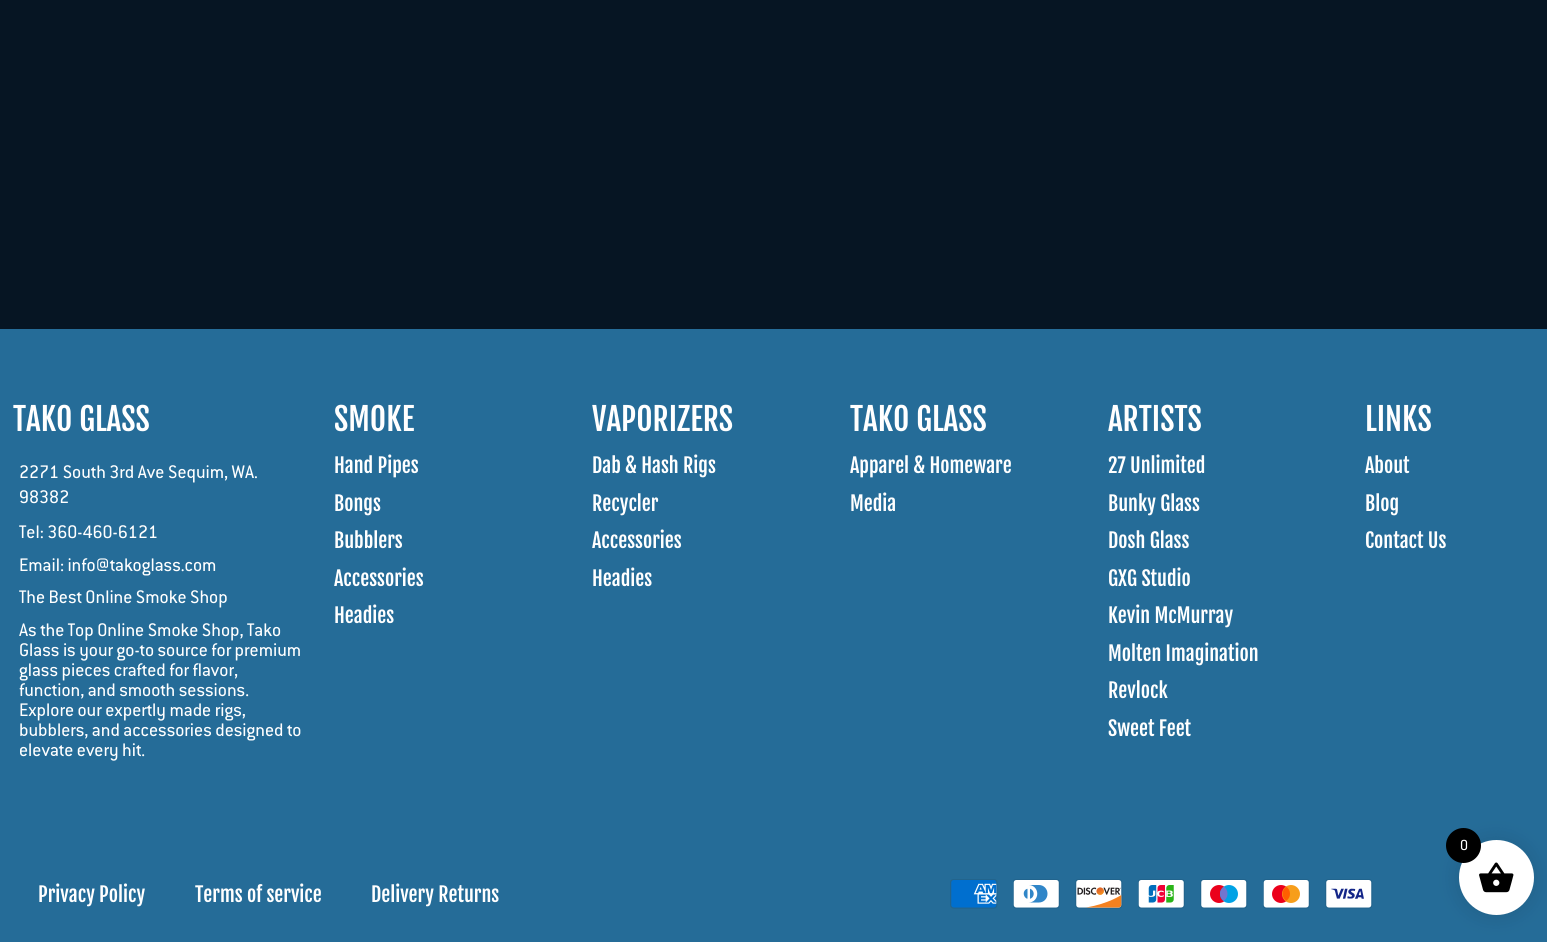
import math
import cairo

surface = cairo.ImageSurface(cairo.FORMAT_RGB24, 1547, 942)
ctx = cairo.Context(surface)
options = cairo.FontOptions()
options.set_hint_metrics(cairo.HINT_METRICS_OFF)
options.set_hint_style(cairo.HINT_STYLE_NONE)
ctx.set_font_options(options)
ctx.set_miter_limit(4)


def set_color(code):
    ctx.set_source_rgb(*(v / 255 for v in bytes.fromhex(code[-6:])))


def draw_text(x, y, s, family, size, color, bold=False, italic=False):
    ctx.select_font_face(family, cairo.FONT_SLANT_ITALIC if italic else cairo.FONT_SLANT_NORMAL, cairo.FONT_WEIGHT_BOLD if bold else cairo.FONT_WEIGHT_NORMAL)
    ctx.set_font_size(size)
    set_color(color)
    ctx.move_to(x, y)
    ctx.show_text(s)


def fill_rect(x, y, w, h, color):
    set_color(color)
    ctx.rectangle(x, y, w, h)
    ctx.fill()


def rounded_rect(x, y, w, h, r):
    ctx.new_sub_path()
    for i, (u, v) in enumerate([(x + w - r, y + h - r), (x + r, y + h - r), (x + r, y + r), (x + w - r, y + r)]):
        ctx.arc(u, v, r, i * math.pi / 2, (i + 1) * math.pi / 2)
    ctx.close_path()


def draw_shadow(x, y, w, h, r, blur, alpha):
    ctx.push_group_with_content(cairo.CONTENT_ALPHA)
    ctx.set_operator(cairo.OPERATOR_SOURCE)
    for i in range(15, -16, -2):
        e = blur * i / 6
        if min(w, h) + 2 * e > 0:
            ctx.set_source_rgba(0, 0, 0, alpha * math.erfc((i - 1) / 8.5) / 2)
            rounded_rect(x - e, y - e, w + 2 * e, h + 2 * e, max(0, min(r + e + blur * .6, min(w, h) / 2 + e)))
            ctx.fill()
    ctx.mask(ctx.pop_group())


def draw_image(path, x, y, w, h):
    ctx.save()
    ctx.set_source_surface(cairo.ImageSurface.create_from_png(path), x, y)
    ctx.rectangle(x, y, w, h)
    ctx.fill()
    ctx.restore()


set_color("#061523")
ctx.paint()
fill_rect(0, 329, 1547, 613, "#256c98")
draw_text(13, 431, "TAKO GLASS", "Fjalla One", 31.25, "#ffffff")
draw_text(19, 478, "2271 South 3rd Ave Sequim, WA.", "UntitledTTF", 20, "#ffffff")
draw_text(19, 503, "98382", "UntitledTTF", 20, "#ffffff")
draw_text(19, 538, "Tel: 360-460-6121", "UntitledTTF", 20, "#ffffff")
draw_text(19, 571, "Email: info@takoglass.com", "UntitledTTF", 20, "#ffffff")
draw_text(19, 603, "The Best Online Smoke Shop", "UntitledTTF", 20, "#ffffff")
draw_text(19, 636, "As the Top Online Smoke Shop, Tako", "UntitledTTF", 20, "#ffffff")
draw_text(19, 656, "Glass is your go-to source for premium", "UntitledTTF", 20, "#ffffff")
draw_text(19, 676, "glass pieces crafted for flavor,", "UntitledTTF", 20, "#ffffff")
draw_text(19, 696, "function, and smooth sessions.", "UntitledTTF", 20, "#ffffff")
draw_text(19, 716, "Explore our expertly made rigs,", "UntitledTTF", 20, "#ffffff")
draw_text(19, 736, "bubblers, and accessories designed to", "UntitledTTF", 20, "#ffffff")
draw_text(19, 756, "elevate every hit.", "UntitledTTF", 20, "#ffffff")
draw_text(334, 431, "SMOKE", "Fjalla One", 31.25, "#ffffff")
draw_text(334, 473, "Hand Pipes", "Fjalla One", 20, "#ffffff")
draw_text(334, 511, "Bongs", "Fjalla One", 20, "#ffffff")
draw_text(334, 548, "Bubblers", "Fjalla One", 20, "#ffffff")
draw_text(334, 586, "Accessories", "Fjalla One", 20, "#ffffff")
draw_text(334, 623, "Headies", "Fjalla One", 20, "#ffffff")
draw_text(592, 431, "VAPORIZERS", "Fjalla One", 31.25, "#ffffff")
draw_text(592, 473, "Dab & Hash Rigs", "Fjalla One", 20, "#ffffff")
draw_text(592, 511, "Recycler", "Fjalla One", 20, "#ffffff")
draw_text(592, 548, "Accessories", "Fjalla One", 20, "#ffffff")
draw_text(592, 586, "Headies", "Fjalla One", 20, "#ffffff")
draw_text(850, 431, "TAKO GLASS", "Fjalla One", 31.25, "#ffffff")
draw_text(850, 473, "Apparel & Homeware", "Fjalla One", 20, "#ffffff")
draw_text(850, 511, "Media", "Fjalla One", 20, "#ffffff")
draw_text(1108, 431, "ARTISTS", "Fjalla One", 31.25, "#ffffff")
draw_text(1108, 473, "27 Unlimited", "Fjalla One", 20, "#ffffff")
draw_text(1108, 511, "Bunky Glass", "Fjalla One", 20, "#ffffff")
draw_text(1108, 548, "Dosh Glass", "Fjalla One", 20, "#ffffff")
draw_text(1108, 586, "GXG Studio", "Fjalla One", 20, "#ffffff")
draw_text(1108, 623, "Kevin McMurray", "Fjalla One", 20, "#ffffff")
draw_text(1108, 661, "Molten Imagination", "Fjalla One", 20, "#ffffff")
draw_text(1108, 698, "Revlock", "Fjalla One", 20, "#ffffff")
draw_text(1108, 736, "Sweet Feet", "Fjalla One", 20, "#ffffff")
draw_text(1365, 431, "LINKS", "Fjalla One", 31.25, "#ffffff")
draw_text(1365, 473, "About", "Fjalla One", 20, "#ffffff")
draw_text(1365, 511, "Blog", "Fjalla One", 20, "#ffffff")
draw_text(1365, 548, "Contact Us", "Fjalla One", 20, "#ffffff")
draw_text(38, 902, "Privacy Policy", "Fjalla One", 20, "#ffffff")
draw_text(195, 902, "Terms of service", "Fjalla One", 20, "#ffffff")
draw_text(371, 902, "Delivery Returns", "Fjalla One", 20, "#ffffff")
draw_image("assets/img1.png", 950, 879, 48, 30)
draw_image("assets/img2.png", 1013, 879, 47, 30)
draw_image("assets/img3.png", 1075, 879, 48, 30)
draw_image("assets/img4.png", 1138, 879, 47, 30)
draw_image("assets/img5.png", 1200, 879, 48, 30)
draw_image("assets/img6.png", 1263, 879, 47, 30)
draw_image("assets/img7.png", 1325, 879, 48, 30)
set_color("#000000")
draw_shadow(1456, 838, 80, 80, 40, 9.5, 0.1)
set_color("#ffffff")
ctx.arc(1496.5, 877.5, 37.5, 0, 2 * math.pi)
ctx.fill()
draw_image("assets/img8.png", 1479, 862, 35, 31)
set_color("#000000")
ctx.arc(1463.5, 845.5, 17.5, 0, 2 * math.pi)
ctx.fill()
draw_text(1460, 850, "0", "UntitledTTF", 16, "#ffffff")
surface.write_to_png("output.png")
